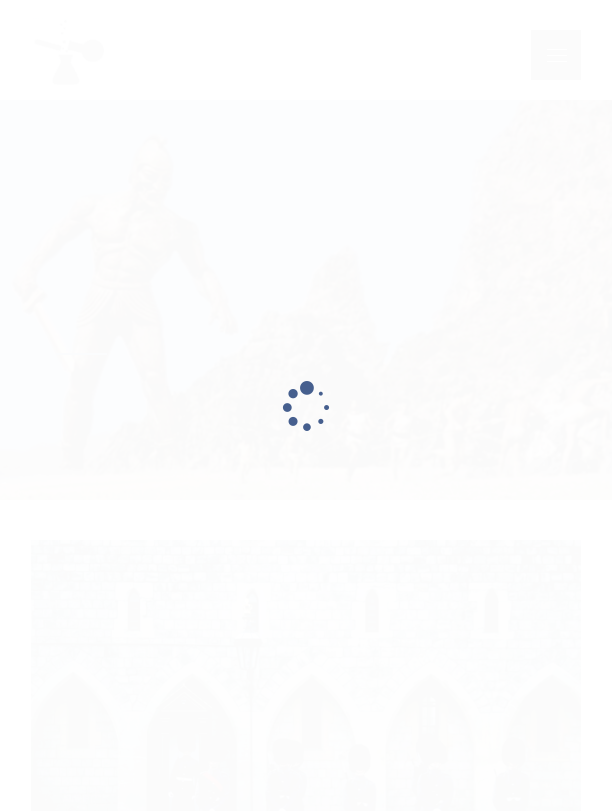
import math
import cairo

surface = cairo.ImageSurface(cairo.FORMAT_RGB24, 612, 811)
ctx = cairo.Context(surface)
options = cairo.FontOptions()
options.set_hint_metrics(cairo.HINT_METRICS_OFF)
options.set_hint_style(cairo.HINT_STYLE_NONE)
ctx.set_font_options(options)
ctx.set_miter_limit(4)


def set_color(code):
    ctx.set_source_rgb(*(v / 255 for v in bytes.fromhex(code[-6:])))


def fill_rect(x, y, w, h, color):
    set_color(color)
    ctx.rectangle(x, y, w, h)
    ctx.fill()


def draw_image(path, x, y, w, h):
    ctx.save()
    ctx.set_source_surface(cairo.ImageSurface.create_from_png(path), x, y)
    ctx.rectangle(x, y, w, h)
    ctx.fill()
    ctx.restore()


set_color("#ffffff")
ctx.paint()
draw_image("assets/img1.png", 31, 18, 75, 75)
fill_rect(531, 30, 50, 50, "#fbfbfb")
fill_rect(547, 49, 20, 1, "#ffffff")
fill_rect(547, 55, 20, 1, "#ffffff")
fill_rect(547, 61, 20, 1, "#ffffff")
draw_image("assets/img2.png", 0, 100, 612, 400)
fill_rect(56, 353, 51, 2, "#fbfcfd")
draw_image("assets/img3.png", 31, 540, 550, 271)
draw_image("assets/img4.png", 282, 381, 48, 50)
surface.write_to_png("output.png")
